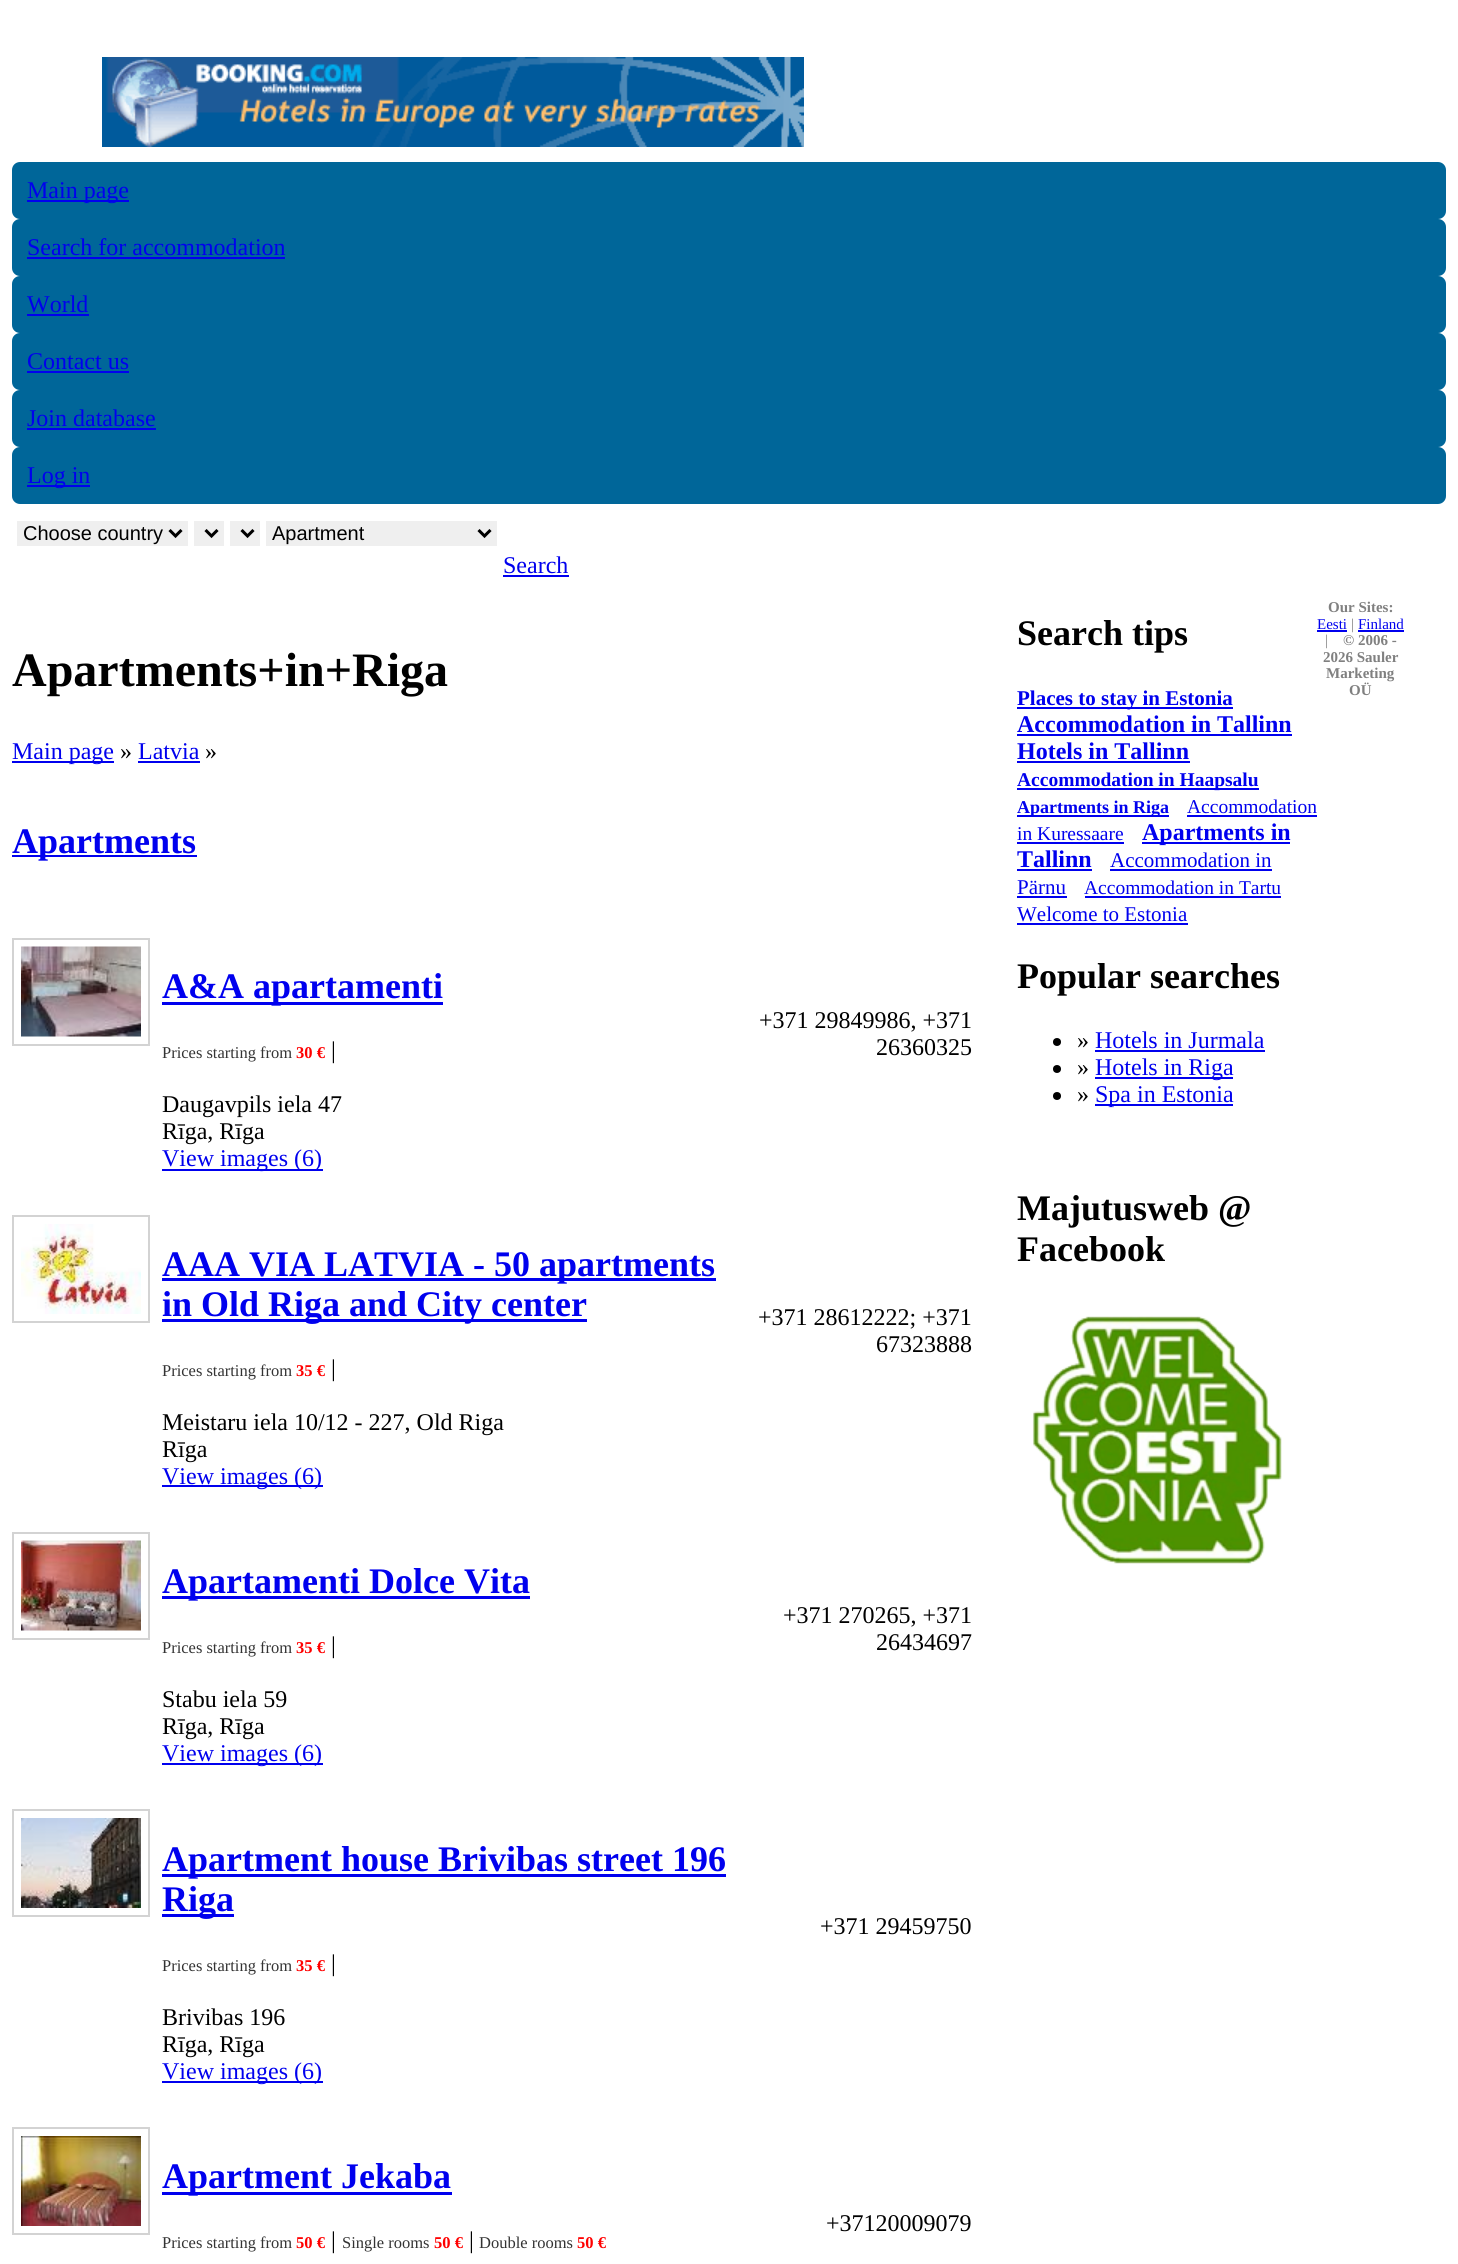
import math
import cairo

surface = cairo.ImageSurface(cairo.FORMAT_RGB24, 1458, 2264)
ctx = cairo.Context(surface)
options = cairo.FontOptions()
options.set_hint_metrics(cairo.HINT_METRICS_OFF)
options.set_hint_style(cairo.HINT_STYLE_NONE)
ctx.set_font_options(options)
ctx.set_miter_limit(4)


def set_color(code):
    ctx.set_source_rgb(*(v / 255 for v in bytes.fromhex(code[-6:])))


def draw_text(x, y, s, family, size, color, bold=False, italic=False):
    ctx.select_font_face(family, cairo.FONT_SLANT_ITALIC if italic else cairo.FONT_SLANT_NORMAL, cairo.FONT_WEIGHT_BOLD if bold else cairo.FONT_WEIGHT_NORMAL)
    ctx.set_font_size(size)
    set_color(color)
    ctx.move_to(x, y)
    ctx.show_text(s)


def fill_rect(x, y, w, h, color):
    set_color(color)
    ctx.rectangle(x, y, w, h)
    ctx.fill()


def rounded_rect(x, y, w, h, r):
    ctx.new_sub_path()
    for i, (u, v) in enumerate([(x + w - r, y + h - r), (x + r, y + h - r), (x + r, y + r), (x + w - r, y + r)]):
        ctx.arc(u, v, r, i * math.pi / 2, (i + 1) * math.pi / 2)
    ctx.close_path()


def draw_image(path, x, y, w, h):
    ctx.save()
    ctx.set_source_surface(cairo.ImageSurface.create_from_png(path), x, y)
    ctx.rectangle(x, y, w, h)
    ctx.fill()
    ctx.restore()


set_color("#ffffff")
ctx.paint()
draw_image("assets/img1.png", 102, 57, 702, 90)
set_color("#006699")
rounded_rect(12, 162, 1434, 57, 8)
ctx.fill()
fill_rect(27, 200, 102, 2, "#0000ee")
draw_text(27, 198, "Main page", "Liberation Serif", 24, "#0000ee")
set_color("#006699")
rounded_rect(12, 219, 1434, 57, 8)
ctx.fill()
draw_text(27, 255, "Search for accommodation", "Liberation Serif", 24, "#0000ee")
fill_rect(27, 257, 258, 2, "#0000ee")
set_color("#006699")
rounded_rect(12, 276, 1434, 57, 8)
ctx.fill()
draw_text(27, 312, "World", "Liberation Serif", 24, "#0000ee")
fill_rect(27, 314, 62, 2, "#0000ee")
set_color("#006699")
rounded_rect(12, 333, 1434, 57, 8)
ctx.fill()
draw_text(27, 369, "Contact us", "Liberation Serif", 24, "#0000ee")
fill_rect(27, 371, 102, 2, "#0000ee")
set_color("#006699")
rounded_rect(12, 390, 1434, 57, 8)
ctx.fill()
draw_text(27, 426, "Join database", "Liberation Serif", 24, "#0000ee")
fill_rect(27, 428, 129, 2, "#0000ee")
set_color("#006699")
rounded_rect(12, 447, 1434, 57, 8)
ctx.fill()
fill_rect(27, 485, 63, 2, "#0000ee")
draw_text(27, 483, "Log in", "Liberation Serif", 24, "#0000ee")
fill_rect(17, 521, 171, 25, "#efefef")
ctx.new_path()
ctx.move_to(169.5, 530)
ctx.line_to(175.5, 536)
ctx.line_to(181.5, 530)
set_color("#000000")
ctx.set_line_width(3)
ctx.stroke()
draw_text(23, 540, "Choose country", "Liberation Sans", 20, "#000000")
fill_rect(194, 521, 30, 25, "#efefef")
ctx.new_path()
ctx.move_to(205.5, 530)
ctx.line_to(211.5, 536)
ctx.line_to(217.5, 530)
set_color("#000000")
ctx.stroke()
fill_rect(230, 521, 30, 25, "#efefef")
ctx.new_path()
ctx.move_to(241.5, 530)
ctx.line_to(247.5, 536)
ctx.line_to(253.5, 530)
set_color("#000000")
ctx.stroke()
fill_rect(266, 521, 231, 25, "#efefef")
ctx.new_path()
ctx.move_to(478.5, 530)
ctx.line_to(484.5, 536)
ctx.line_to(490.5, 530)
set_color("#000000")
ctx.stroke()
draw_text(272, 540, "Apartment", "Liberation Sans", 20, "#000000")
draw_text(503, 573, "Search", "Liberation Serif", 24, "#0000ee")
fill_rect(503, 575, 66, 2, "#0000ee")
draw_text(12, 686, "Apartments+in+Riga", "Liberation Serif", 48, "#000000", bold=True)
fill_rect(12, 761, 102, 2, "#0000ee")
draw_text(12, 759, "Main page", "Liberation Serif", 24, "#0000ee")
draw_text(120, 759, "»", "Liberation Serif", 24, "#000000")
draw_text(138, 759, "Latvia", "Liberation Serif", 24, "#0000ee")
fill_rect(138, 761, 62, 2, "#0000ee")
draw_text(205, 759, "»", "Liberation Serif", 24, "#000000")
fill_rect(12, 855, 185, 2, "#0000ee")
draw_text(12, 853, "Apartments", "Liberation Serif", 36, "#0000ee", bold=True)
ctx.rectangle(13, 939, 136, 106)
set_color("#d3d3d3")
ctx.set_line_width(2)
ctx.stroke()
draw_image("assets/img2.png", 21, 946, 120, 91)
fill_rect(162, 1002, 281, 3, "#0000ee")
draw_text(162, 998, "A&A apartamenti", "Liberation Serif", 36, "#0000ee", bold=True)
draw_text(162, 1058, "Prices starting from", "Liberation Serif", 16.5, "#333333")
draw_text(296, 1058, "30 €", "Liberation Serif", 16.5, "#ff0000", bold=True)
draw_text(331, 1058, "|", "Liberation Serif", 24, "#000000")
draw_text(162, 1112, "Daugavpils iela 47", "Liberation Serif", 24, "#000000")
draw_text(162, 1139, "Rīga, Rīga", "Liberation Serif", 24, "#000000")
draw_text(759, 1028, "+371 29849986, +371", "Liberation Serif", 24, "#000000")
draw_text(876, 1055, "26360325", "Liberation Serif", 24, "#000000")
fill_rect(162, 1169, 161, 2, "#0000ee")
draw_text(162, 1166, "View images (6)", "Liberation Serif", 24, "#0000ee")
ctx.rectangle(13, 1216, 136, 106)
set_color("#d3d3d3")
ctx.stroke()
draw_image("assets/img3.png", 21, 1224, 120, 90)
fill_rect(162, 1278, 554, 3, "#0000ee")
draw_text(162, 1276, "AAA VIA LATVIA - 50 apartments", "Liberation Serif", 36, "#0000ee", bold=True)
fill_rect(162, 1319, 425, 3, "#0000ee")
draw_text(162, 1316, "in Old Riga and City center", "Liberation Serif", 36, "#0000ee", bold=True)
draw_text(162, 1376, "Prices starting from", "Liberation Serif", 16.5, "#333333")
draw_text(296, 1376, "35 €", "Liberation Serif", 16.5, "#ff0000", bold=True)
draw_text(331, 1376, "|", "Liberation Serif", 24, "#000000")
draw_text(162, 1430, "Meistaru iela 10/12 - 227, Old Riga", "Liberation Serif", 24, "#000000")
draw_text(162, 1457, "Rīga", "Liberation Serif", 24, "#000000")
draw_text(758, 1325, "+371 28612222; +371", "Liberation Serif", 24, "#000000")
draw_text(876, 1352, "67323888", "Liberation Serif", 24, "#000000")
fill_rect(162, 1485, 161, 2, "#0000ee")
draw_text(162, 1484, "View images (6)", "Liberation Serif", 24, "#0000ee")
ctx.rectangle(13, 1533, 136, 106)
set_color("#d3d3d3")
ctx.stroke()
draw_image("assets/img4.png", 21, 1540, 120, 91)
fill_rect(162, 1596, 368, 3, "#0000ee")
draw_text(162, 1593, "Apartamenti Dolce Vita", "Liberation Serif", 36, "#0000ee", bold=True)
draw_text(162, 1653, "Prices starting from", "Liberation Serif", 16.5, "#333333")
draw_text(296, 1653, "35 €", "Liberation Serif", 16.5, "#ff0000", bold=True)
draw_text(331, 1653, "|", "Liberation Serif", 24, "#000000")
draw_text(162, 1707, "Stabu iela 59", "Liberation Serif", 24, "#000000")
draw_text(162, 1734, "Rīga, Rīga", "Liberation Serif", 24, "#000000")
draw_text(783, 1623, "+371 270265, +371", "Liberation Serif", 24, "#000000")
draw_text(876, 1650, "26434697", "Liberation Serif", 24, "#000000")
fill_rect(162, 1763, 161, 2, "#0000ee")
draw_text(162, 1761, "View images (6)", "Liberation Serif", 24, "#0000ee")
ctx.rectangle(13, 1810, 136, 106)
set_color("#d3d3d3")
ctx.stroke()
draw_image("assets/img5.png", 21, 1818, 120, 90)
fill_rect(162, 1874, 564, 3, "#0000ee")
draw_text(162, 1871, "Apartment house Brivibas street 196", "Liberation Serif", 36, "#0000ee", bold=True)
fill_rect(162, 1914, 72, 3, "#0000ee")
draw_text(162, 1911, "Riga", "Liberation Serif", 36, "#0000ee", bold=True)
draw_text(162, 1971, "Prices starting from", "Liberation Serif", 16.5, "#333333")
draw_text(296, 1971, "35 €", "Liberation Serif", 16.5, "#ff0000", bold=True)
draw_text(331, 1971, "|", "Liberation Serif", 24, "#000000")
draw_text(162, 2025, "Brivibas 196", "Liberation Serif", 24, "#000000")
draw_text(162, 2052, "Rīga, Rīga", "Liberation Serif", 24, "#000000")
draw_text(820, 1934, "+371 29459750", "Liberation Serif", 24, "#000000")
fill_rect(162, 2081, 161, 2, "#0000ee")
draw_text(162, 2079, "View images (6)", "Liberation Serif", 24, "#0000ee")
ctx.rectangle(13, 2128, 136, 106)
set_color("#d3d3d3")
ctx.stroke()
draw_image("assets/img6.png", 21, 2136, 120, 90)
fill_rect(162, 2192, 290, 3, "#0000ee")
draw_text(162, 2188, "Apartment Jekaba", "Liberation Serif", 36, "#0000ee", bold=True)
draw_text(162, 2248, "Prices starting from", "Liberation Serif", 16.5, "#333333")
draw_text(296, 2248, "50 €", "Liberation Serif", 16.5, "#ff0000", bold=True)
draw_text(331, 2248, "|", "Liberation Serif", 24, "#000000")
draw_text(342, 2248, "Single rooms", "Liberation Serif", 16.5, "#333333")
draw_text(434, 2248, "50 €", "Liberation Serif", 16.5, "#ff0000", bold=True)
draw_text(469, 2248, "|", "Liberation Serif", 24, "#000000")
draw_text(479, 2248, "Double rooms", "Liberation Serif", 16.5, "#333333")
draw_text(577, 2248, "50 €", "Liberation Serif", 16.5, "#ff0000", bold=True)
draw_text(826, 2231, "+37120009079", "Liberation Serif", 24, "#000000")
draw_text(1017, 645, "Search tips", "Liberation Serif", 36, "#000000", bold=True)
fill_rect(1017, 707, 216, 2, "#0000ee")
draw_text(1017, 705, "Places to stay in Estonia", "Liberation Serif", 21, "#0000ee", bold=True)
draw_text(1017, 732, "Accommodation in Tallinn", "Liberation Serif", 24, "#0000ee", bold=True)
fill_rect(1017, 734, 275, 2, "#0000ee")
draw_text(1017, 759, "Hotels in Tallinn", "Liberation Serif", 24, "#0000ee", bold=True)
fill_rect(1017, 761, 173, 2, "#0000ee")
fill_rect(1017, 788, 242, 2, "#0000ee")
draw_text(1017, 786, "Accommodation in Haapsalu", "Liberation Serif", 19.5, "#0000ee", bold=True)
fill_rect(1017, 815, 152, 2, "#0000ee")
draw_text(1017, 813, "Apartments in Riga", "Liberation Serif", 18, "#0000ee", bold=True)
draw_text(1187, 813, "Accommodation", "Liberation Serif", 19.5, "#0000ee")
fill_rect(1187, 815, 130, 2, "#0000ee")
draw_text(1017, 840, "in Kuressaare", "Liberation Serif", 19.5, "#0000ee")
fill_rect(1017, 842, 107, 2, "#0000ee")
fill_rect(1142, 842, 148, 2, "#0000ee")
draw_text(1142, 840, "Apartments in", "Liberation Serif", 24, "#0000ee", bold=True)
draw_text(1017, 867, "Tallinn", "Liberation Serif", 24, "#0000ee", bold=True)
fill_rect(1017, 869, 75, 2, "#0000ee")
draw_text(1110, 867, "Accommodation in", "Liberation Serif", 21, "#0000ee")
fill_rect(1110, 869, 162, 2, "#0000ee")
draw_text(1017, 894, "Pärnu", "Liberation Serif", 21, "#0000ee")
fill_rect(1017, 896, 50, 2, "#0000ee")
draw_text(1084, 894, "Accommodation in Tartu", "Liberation Serif", 19.5, "#0000ee")
fill_rect(1085, 896, 196, 2, "#0000ee")
draw_text(1017, 921, "Welcome to Estonia", "Liberation Serif", 21, "#0000ee")
fill_rect(1017, 923, 171, 2, "#0000ee")
draw_text(1017, 988, "Popular searches", "Liberation Serif", 36, "#000000", bold=True)
ctx.new_path()
ctx.arc(1057, 1042, 4, 0, 2 * math.pi)
ctx.fill()
draw_text(1077, 1048, "»", "Liberation Serif", 24, "#000000")
draw_text(1095, 1048, "Hotels in Jurmala", "Liberation Serif", 24, "#0000ee")
fill_rect(1095, 1050, 170, 2, "#0000ee")
set_color("#000000")
ctx.new_path()
ctx.arc(1057, 1069, 4, 0, 2 * math.pi)
ctx.fill()
draw_text(1077, 1075, "»", "Liberation Serif", 24, "#000000")
fill_rect(1095, 1077, 138, 2, "#0000ee")
draw_text(1095, 1075, "Hotels in Riga", "Liberation Serif", 24, "#0000ee")
set_color("#000000")
ctx.new_path()
ctx.arc(1057, 1096, 4, 0, 2 * math.pi)
ctx.fill()
draw_text(1077, 1102, "»", "Liberation Serif", 24, "#000000")
fill_rect(1095, 1104, 138, 2, "#0000ee")
draw_text(1095, 1102, "Spa in Estonia", "Liberation Serif", 24, "#0000ee")
draw_text(1017, 1220, "Majutusweb @", "Liberation Serif", 36, "#000000", bold=True)
draw_text(1017, 1261, "Facebook", "Liberation Serif", 36, "#000000", bold=True)
draw_image("assets/img7.png", 1032, 1316, 250, 248)
draw_text(1328, 612, "Our Sites:", "Liberation Serif", 15, "#808080", bold=True)
draw_text(1317, 629, "Eesti", "Liberation Serif", 15, "#0000ee")
fill_rect(1317, 630, 30, 2, "#0000ee")
draw_text(1351, 629, "|", "Liberation Serif", 15, "#808080")
draw_text(1358, 629, "Finland", "Liberation Serif", 15, "#0000ee")
fill_rect(1358, 630, 46, 2, "#0000ee")
draw_text(1325, 645, "|", "Liberation Serif", 15, "#808080")
draw_text(1343, 645, "© 2006 -", "Liberation Serif", 15, "#808080", bold=True)
draw_text(1323, 662, "2026 Sauler", "Liberation Serif", 15, "#808080", bold=True)
draw_text(1326, 678, "Marketing", "Liberation Serif", 15, "#808080", bold=True)
draw_text(1349, 695, "OÜ", "Liberation Serif", 15, "#808080", bold=True)
surface.write_to_png("output.png")
